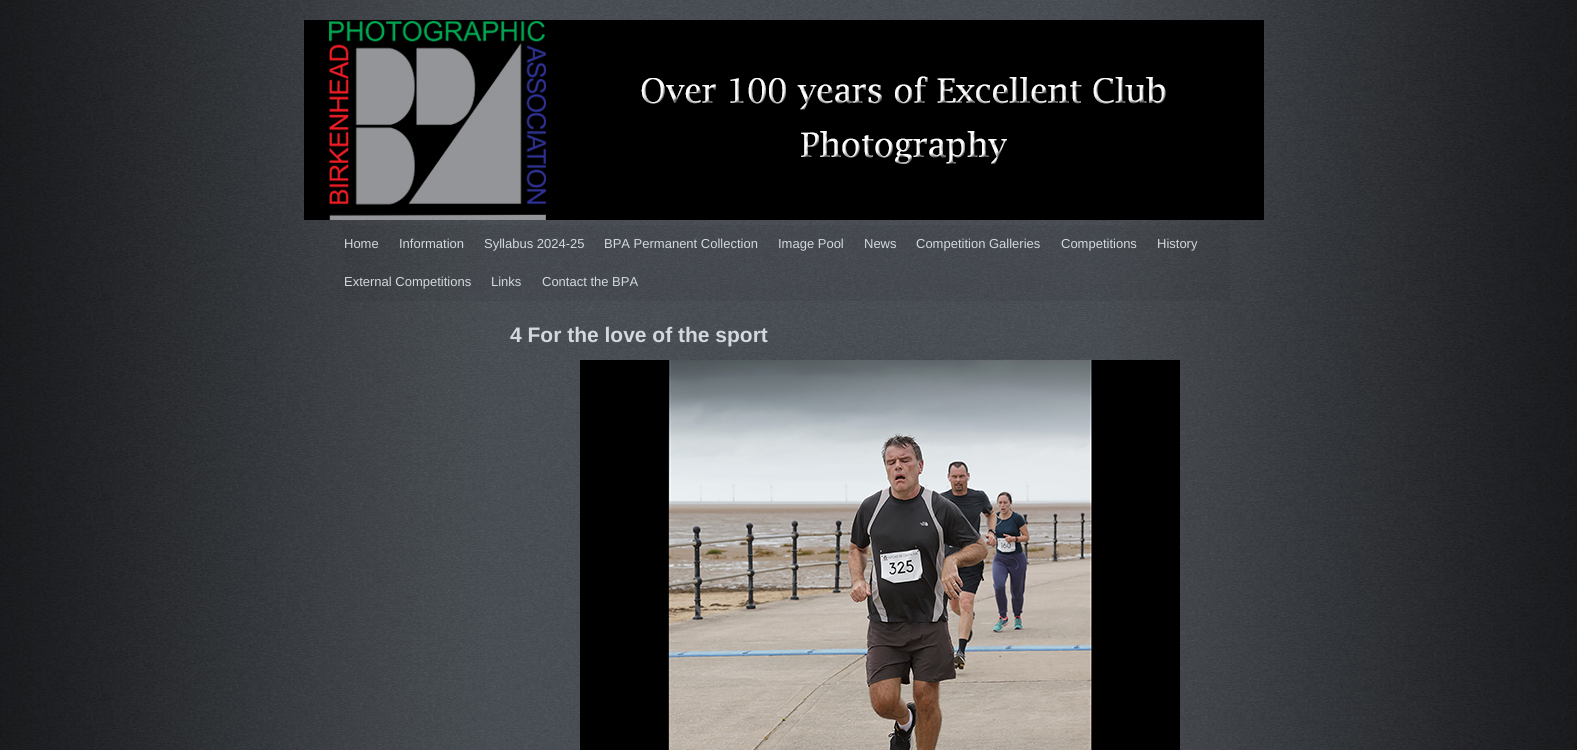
import math
import cairo

surface = cairo.ImageSurface(cairo.FORMAT_RGB24, 1577, 750)
ctx = cairo.Context(surface)
options = cairo.FontOptions()
options.set_hint_metrics(cairo.HINT_METRICS_OFF)
options.set_hint_style(cairo.HINT_STYLE_NONE)
ctx.set_font_options(options)
ctx.set_miter_limit(4)


def set_color(code):
    ctx.set_source_rgb(*(v / 255 for v in bytes.fromhex(code[-6:])))


def draw_text(x, y, s, family, size, color, bold=False, italic=False):
    ctx.select_font_face(family, cairo.FONT_SLANT_ITALIC if italic else cairo.FONT_SLANT_NORMAL, cairo.FONT_WEIGHT_BOLD if bold else cairo.FONT_WEIGHT_NORMAL)
    ctx.set_font_size(size)
    set_color(color)
    ctx.move_to(x, y)
    ctx.show_text(s)


def draw_image(path, x, y, w, h):
    ctx.save()
    ctx.set_source_surface(cairo.ImageSurface.create_from_png(path), x, y)
    ctx.rectangle(x, y, w, h)
    ctx.fill()
    ctx.restore()


set_color("#ffffff")
ctx.paint()
draw_image("assets/img1.png", 0, 0, 1577, 750)
draw_image("assets/img2.png", 304, 20, 960, 200)
ctx.set_source_rgba(0, 0, 0, 0.05)
ctx.rectangle(343, 225, 887, 76)
ctx.fill()
draw_text(344, 248, "Home", "Liberation Sans", 13, "#d2d8de")
draw_text(399, 248, "Information", "Liberation Sans", 13, "#d2d8de")
draw_text(484, 248, "Syllabus 2024-25", "Liberation Sans", 13, "#d2d8de")
draw_text(604, 248, "BPA Permanent Collection", "Liberation Sans", 13, "#d2d8de")
draw_text(778, 248, "Image Pool", "Liberation Sans", 13, "#d2d8de")
draw_text(864, 248, "News", "Liberation Sans", 13, "#d2d8de")
draw_text(916, 248, "Competition Galleries", "Liberation Sans", 13, "#d2d8de")
draw_text(1061, 248, "Competitions", "Liberation Sans", 13, "#d2d8de")
draw_text(1157, 248, "History", "Liberation Sans", 13, "#d2d8de")
draw_text(344, 286, "External Competitions", "Liberation Sans", 13, "#d2d8de")
draw_text(491, 286, "Links", "Liberation Sans", 13, "#d2d8de")
draw_text(542, 286, "Contact the BPA", "Liberation Sans", 13, "#d2d8de")
draw_text(510, 342, "4 For the love of the sport", "Liberation Sans", 21, "#d2d8de", bold=True)
draw_image("assets/img3.png", 580, 360, 600, 390)
surface.write_to_png("output.png")
